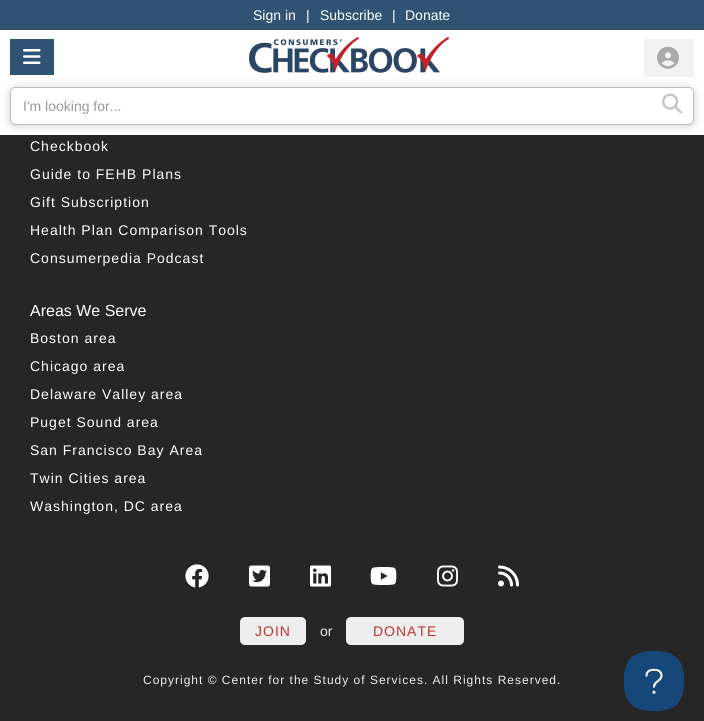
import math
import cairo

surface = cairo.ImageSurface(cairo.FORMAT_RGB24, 704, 721)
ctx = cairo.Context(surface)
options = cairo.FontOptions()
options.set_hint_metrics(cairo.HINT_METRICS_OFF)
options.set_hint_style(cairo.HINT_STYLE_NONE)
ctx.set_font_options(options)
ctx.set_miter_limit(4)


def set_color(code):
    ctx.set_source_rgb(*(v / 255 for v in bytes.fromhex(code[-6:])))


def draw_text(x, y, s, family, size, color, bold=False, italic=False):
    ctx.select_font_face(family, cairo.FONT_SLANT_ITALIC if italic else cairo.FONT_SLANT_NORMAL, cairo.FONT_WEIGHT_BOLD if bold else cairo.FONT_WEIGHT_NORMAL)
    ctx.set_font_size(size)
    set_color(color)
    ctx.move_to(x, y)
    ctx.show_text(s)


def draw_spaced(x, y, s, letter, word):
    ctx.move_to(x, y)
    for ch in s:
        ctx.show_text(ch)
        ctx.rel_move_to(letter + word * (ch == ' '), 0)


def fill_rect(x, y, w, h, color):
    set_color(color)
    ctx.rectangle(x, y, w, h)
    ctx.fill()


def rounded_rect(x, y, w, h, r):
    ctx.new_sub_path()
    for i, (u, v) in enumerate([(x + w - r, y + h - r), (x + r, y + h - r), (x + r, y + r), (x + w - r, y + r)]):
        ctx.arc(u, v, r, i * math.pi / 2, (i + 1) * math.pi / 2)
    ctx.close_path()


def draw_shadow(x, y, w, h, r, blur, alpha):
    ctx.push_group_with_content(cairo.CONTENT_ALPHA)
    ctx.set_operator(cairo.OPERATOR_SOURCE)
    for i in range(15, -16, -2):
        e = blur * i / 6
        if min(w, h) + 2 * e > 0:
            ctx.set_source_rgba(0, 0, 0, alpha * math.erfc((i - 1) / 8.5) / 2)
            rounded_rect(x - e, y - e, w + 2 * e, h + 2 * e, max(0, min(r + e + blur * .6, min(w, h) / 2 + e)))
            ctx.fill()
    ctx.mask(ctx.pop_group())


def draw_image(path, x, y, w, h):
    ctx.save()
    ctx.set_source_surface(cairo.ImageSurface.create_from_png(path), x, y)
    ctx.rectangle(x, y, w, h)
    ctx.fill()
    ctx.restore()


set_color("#262626")
ctx.paint()
fill_rect(0, 0, 704, 30, "#305373")
draw_text(253, 20, "Sign in", "Liberation Sans", 14, "#ffffff")
draw_text(306, 20, "|", "Liberation Sans", 14, "#ffffff")
draw_text(320, 20, "Subscribe", "Liberation Sans", 14, "#ffffff")
draw_text(392, 20, "|", "Liberation Sans", 14, "#ffffff")
draw_text(405, 20, "Donate", "Liberation Sans", 14, "#ffffff")
fill_rect(0, 30, 704, 105, "#ffffff")
fill_rect(10, 39, 44, 36, "#305373")
draw_image("assets/img1.png", 23, 49, 18, 15)
draw_image("assets/img2.png", 249, 37, 200, 36)
set_color("#000000")
draw_shadow(10, 88, 684, 38, 5, 8, 0.06)
draw_shadow(10, 88, 684, 38, 5, 4, 0.12)
fill_rect(644, 39, 50, 38, "#f2f2f2")
draw_image("assets/img3.png", 657, 46, 22, 23)
set_color("#ffffff")
rounded_rect(10.5, 87.5, 683, 37, 4.5)
ctx.fill_preserve()
set_color("#bcbcbc")
ctx.set_line_width(1)
ctx.stroke()
draw_text(23, 111, "I'm looking for...", "Liberation Sans", 14, "#999999")
draw_image("assets/img4.png", 662, 93, 20, 21)
set_color("#ffffff")
draw_spaced(30, 151, "Checkbook", 1, 0)
draw_spaced(30, 179, "Guide to FEHB Plans", 1, 0)
draw_spaced(30, 207, "Gift Subscription", 1, 0)
draw_spaced(30, 235, "Health Plan Comparison Tools", 1, 0)
draw_spaced(30, 263, "Consumerpedia Podcast", 1, 0)
draw_text(30, 316, "Areas We Serve", "Liberation Sans", 16, "#ffffff")
ctx.set_font_size(14)
draw_spaced(30, 343, "Boston area", 1, 0)
draw_spaced(30, 371, "Chicago area", 1, 0)
draw_spaced(30, 399, "Delaware Valley area", 1, 0)
draw_spaced(30, 427, "Puget Sound area", 1, 0)
draw_spaced(30, 455, "San Francisco Bay Area", 1, 0)
draw_spaced(30, 483, "Twin Cities area", 1, 0)
draw_spaced(30, 511, "Washington, DC area", 1, 0)
draw_image("assets/img5.png", 185, 564, 24, 24)
draw_image("assets/img6.png", 249, 565, 21, 22)
draw_image("assets/img7.png", 310, 565, 21, 22)
draw_image("assets/img8.png", 370, 567, 27, 18)
draw_image("assets/img9.png", 437, 565, 21, 22)
draw_image("assets/img10.png", 498, 565, 21, 22)
set_color("#eeeeee")
rounded_rect(240, 617, 66, 28, 5)
ctx.fill()
set_color("#c13433")
draw_spaced(255, 636, "JOIN", 1, 0)
draw_text(320, 636, "or", "Liberation Sans", 14, "#eeeeee")
rounded_rect(346, 617, 118, 28, 5)
ctx.fill()
set_color("#c13433")
draw_spaced(373, 636, "DONATE", 1, 0)
ctx.set_font_size(12)
set_color("#eeeeee")
draw_spaced(143, 684, "Copyright © Center for the Study of Services. All Rights Reserved.", 1, 0)
draw_image("assets/img11.png", 624, 651, 60, 60)
surface.write_to_png("output.png")
